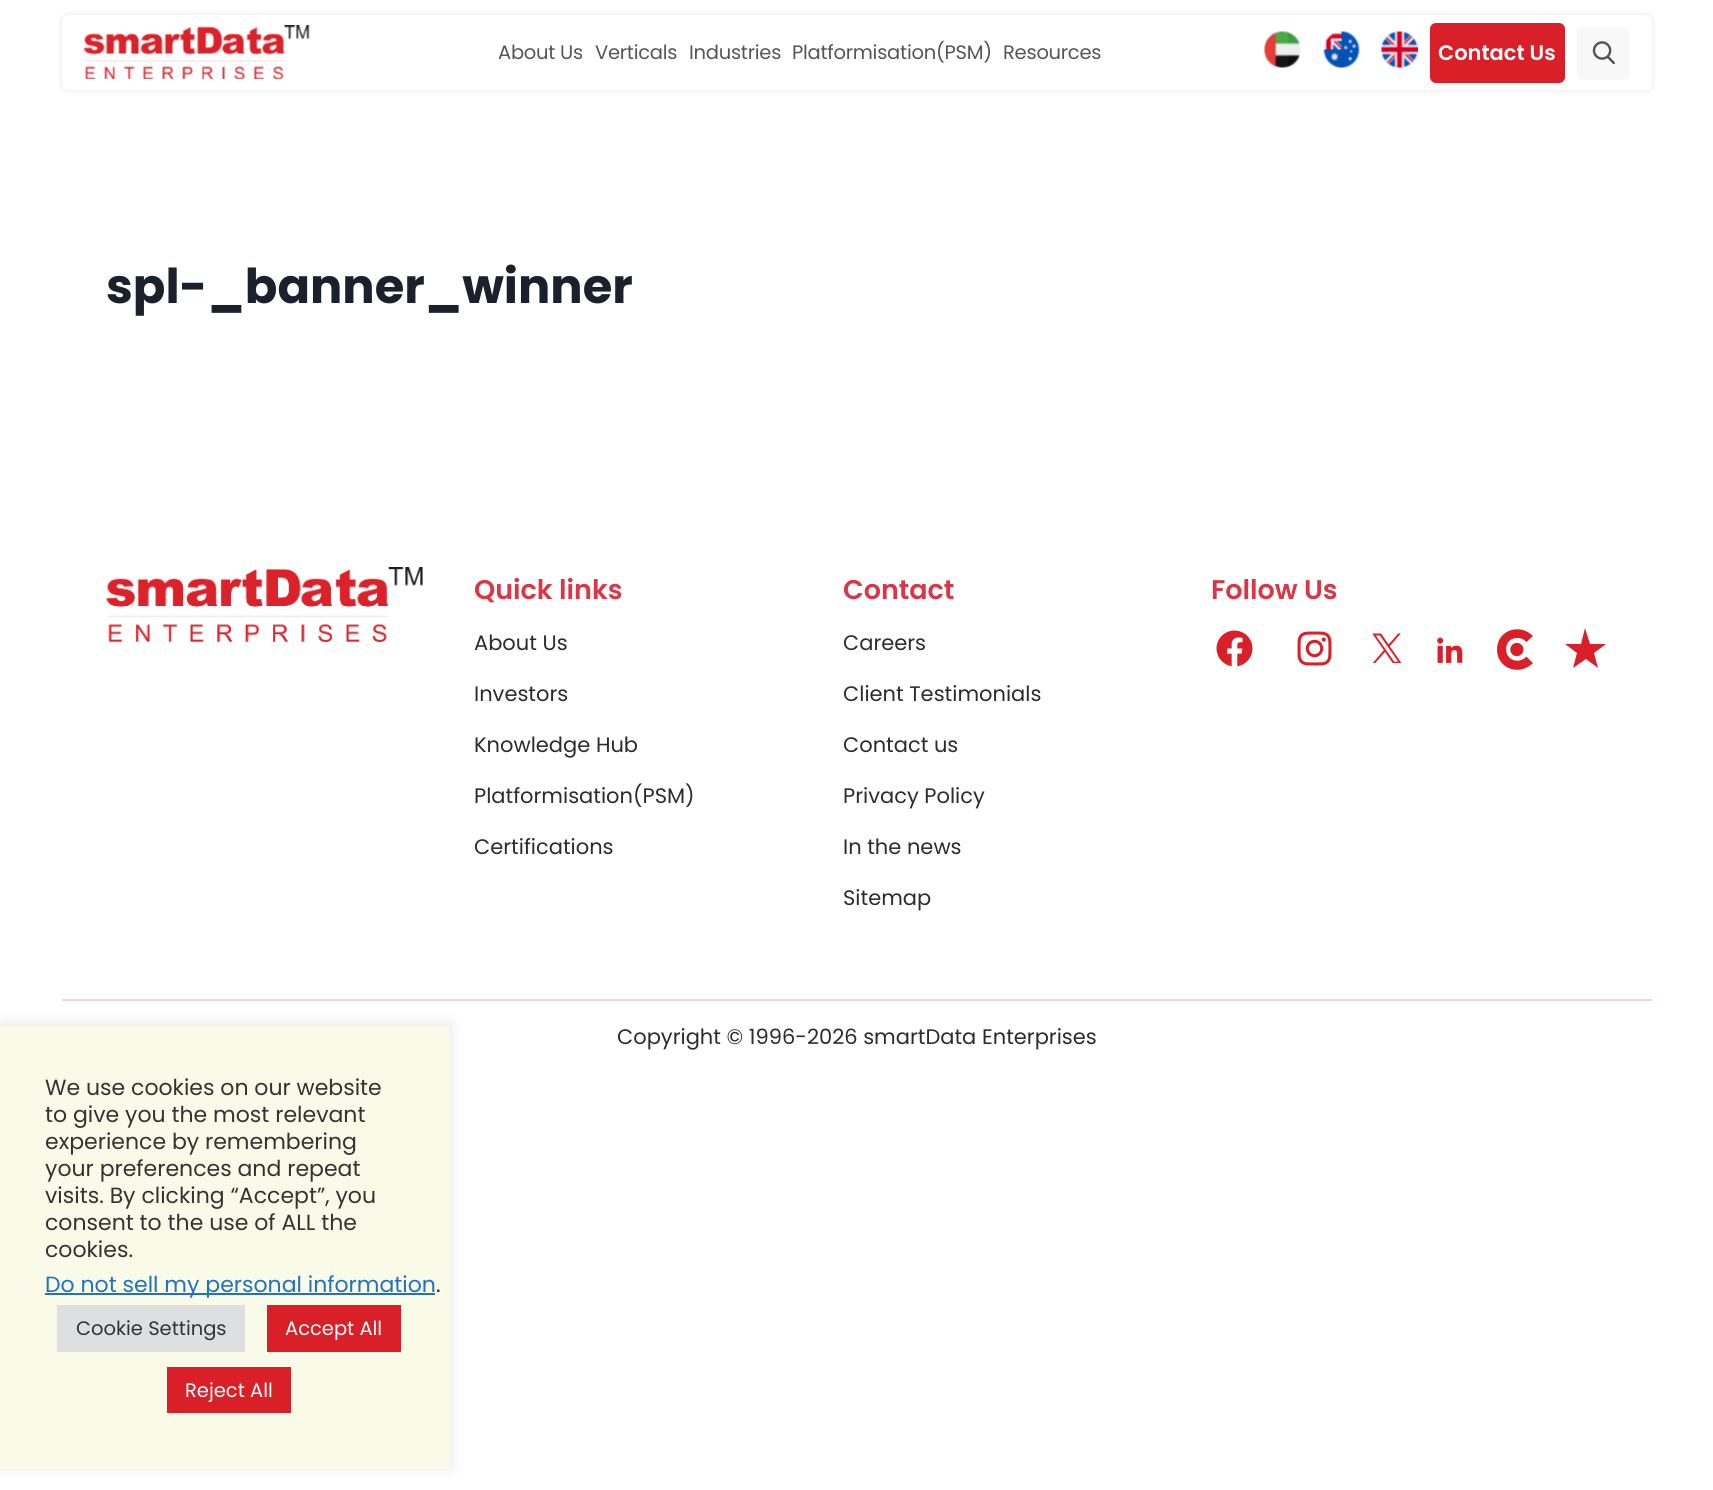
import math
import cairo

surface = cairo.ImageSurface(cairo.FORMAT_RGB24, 1713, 1490)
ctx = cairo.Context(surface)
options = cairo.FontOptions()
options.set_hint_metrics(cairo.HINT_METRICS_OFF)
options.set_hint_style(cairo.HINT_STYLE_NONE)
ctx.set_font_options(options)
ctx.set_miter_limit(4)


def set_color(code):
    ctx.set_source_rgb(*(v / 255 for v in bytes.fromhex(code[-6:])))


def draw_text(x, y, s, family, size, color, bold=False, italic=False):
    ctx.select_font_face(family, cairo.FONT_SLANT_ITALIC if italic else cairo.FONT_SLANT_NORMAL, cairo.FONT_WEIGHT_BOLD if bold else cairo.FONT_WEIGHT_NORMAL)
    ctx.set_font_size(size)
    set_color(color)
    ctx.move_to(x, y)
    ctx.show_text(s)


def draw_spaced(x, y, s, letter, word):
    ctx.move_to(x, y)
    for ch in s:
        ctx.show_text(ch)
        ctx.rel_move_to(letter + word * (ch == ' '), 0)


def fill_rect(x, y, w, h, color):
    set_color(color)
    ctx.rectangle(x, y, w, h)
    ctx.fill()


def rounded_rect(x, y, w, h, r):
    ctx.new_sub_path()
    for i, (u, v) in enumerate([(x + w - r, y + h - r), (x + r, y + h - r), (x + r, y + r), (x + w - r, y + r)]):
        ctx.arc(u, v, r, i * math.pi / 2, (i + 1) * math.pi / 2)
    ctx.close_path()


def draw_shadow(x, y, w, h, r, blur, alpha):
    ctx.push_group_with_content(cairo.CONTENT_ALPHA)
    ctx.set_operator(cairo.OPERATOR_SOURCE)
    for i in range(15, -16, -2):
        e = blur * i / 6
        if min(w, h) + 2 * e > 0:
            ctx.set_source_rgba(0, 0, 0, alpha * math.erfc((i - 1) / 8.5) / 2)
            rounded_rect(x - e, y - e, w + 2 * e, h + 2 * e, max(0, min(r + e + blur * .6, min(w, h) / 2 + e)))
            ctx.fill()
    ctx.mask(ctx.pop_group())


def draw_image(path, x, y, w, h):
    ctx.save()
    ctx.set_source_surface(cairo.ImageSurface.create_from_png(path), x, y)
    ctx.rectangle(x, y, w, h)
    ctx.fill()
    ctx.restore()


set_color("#ffffff")
ctx.paint()
set_color("#000000")
draw_shadow(62, 15, 1590, 75, 6, 3, 0.11)
set_color("#ffffff")
rounded_rect(62, 15, 1590, 75, 6)
ctx.fill()
draw_image("assets/img1.png", 83, 25, 227, 54)
ctx.select_font_face("Poppins")
ctx.set_font_size(19.5)
set_color("#555555")
draw_spaced(498, 59, "About Us", -0.25, 0)
draw_spaced(595, 59, "Verticals", -0.25, 0)
draw_spaced(689, 59, "Industries", -0.25, 0)
draw_spaced(792, 59, "Platformisation(PSM)", -0.25, 0)
draw_spaced(1003, 59, "Resources", -0.25, 0)
draw_image("assets/img2.png", 1264, 31, 37, 37)
draw_image("assets/img3.png", 1323, 31, 37, 37)
draw_image("assets/img4.png", 1381, 31, 37, 37)
set_color("#d92029")
rounded_rect(1431, 24, 133, 58, 5)
ctx.fill_preserve()
ctx.stroke()
draw_text(1438, 60, "Contact Us", "Poppins SemiBold", 21, "#ffffff")
set_color("#f8f8f8")
rounded_rect(1577, 27, 52, 53, 6)
ctx.fill()
draw_image("assets/img5.png", 1592, 41, 23, 23)
draw_text(106, 303, "spl-_banner_winner", "Poppins", 48, "#1a202c", bold=True)
draw_image("assets/img6.png", 106, 567, 317, 75)
draw_text(474, 599, "Quick links", "Poppins SemiBold", 27, "#dc3545")
draw_text(474, 650, "About Us", "Poppins", 21, "#2c2c2c")
draw_text(474, 701, "Investors", "Poppins", 21, "#2c2c2c")
draw_text(474, 752, "Knowledge Hub", "Poppins", 21, "#2c2c2c")
draw_text(474, 803, "Platformisation(PSM)", "Poppins", 21, "#2c2c2c")
draw_text(474, 854, "Certifications", "Poppins", 21, "#2c2c2c")
draw_text(843, 599, "Contact", "Poppins SemiBold", 27, "#dc3545")
draw_text(843, 650, "Careers", "Poppins", 21, "#2c2c2c")
draw_text(843, 701, "Client Testimonials", "Poppins", 21, "#2c2c2c")
draw_text(843, 752, "Contact us", "Poppins", 21, "#2c2c2c")
draw_text(843, 803, "Privacy Policy", "Poppins", 21, "#2c2c2c")
draw_text(843, 854, "In the news", "Poppins", 21, "#2c2c2c")
draw_text(843, 905, "Sitemap", "Poppins", 21, "#2c2c2c")
draw_text(1211, 599, "Follow Us", "Poppins SemiBold", 27, "#dc3545")
draw_image("assets/img7.png", 1216, 630, 37, 37)
draw_image("assets/img8.png", 1297, 631, 35, 35)
draw_image("assets/img9.png", 1372, 633, 30, 30)
draw_image("assets/img10.png", 1437, 637, 26, 26)
draw_image("assets/img11.png", 1497, 629, 36, 41)
set_color("#d92029")
ctx.new_path()
ctx.move_to(1565, 644)
ctx.line_to(1581, 644)
ctx.line_to(1585, 628)
ctx.line_to(1590, 644)
ctx.line_to(1606, 644)
ctx.line_to(1594, 653)
ctx.line_to(1598, 668)
ctx.line_to(1586, 659)
ctx.line_to(1573, 668)
ctx.line_to(1577, 653)
ctx.close_path()
ctx.fill()
ctx.new_path()
ctx.move_to(1576.5, 656.5)
ctx.line_to(1577.5, 653)
ctx.line_to(1585.5, 659)
ctx.close_path()
ctx.fill()
fill_rect(62, 999, 1590, 2, "#f5d2d4")
draw_text(617, 1044, "Copyright © 1996-2026 smartData Enterprises", "Poppins", 21, "#2c2c2c")
set_color("#acabab")
draw_shadow(0, 1025, 450, 442, 0, 7.5, 0.3)
fill_rect(0, 1026, 450, 443, "#fafae9")
draw_text(45, 1095, "We use cookies on our website", "Poppins", 22, "#333333")
draw_text(45, 1122, "to give you the most relevant", "Poppins", 22, "#333333")
draw_text(45, 1149, "experience by remembering", "Poppins", 22, "#333333")
draw_text(45, 1176, "your preferences and repeat", "Poppins", 22, "#333333")
draw_text(45, 1203, "visits. By clicking “Accept”, you", "Poppins", 22, "#333333")
draw_text(45, 1230, "consent to the use of ALL the", "Poppins", 22, "#333333")
draw_text(45, 1257, "cookies.", "Poppins", 22, "#333333")
fill_rect(45, 1293, 390, 2, "#1e73be")
draw_text(45, 1292, "Do not sell my personal information", "Poppins", 22, "#1e73be")
draw_text(436, 1292, ".", "Poppins", 22, "#333333")
fill_rect(57, 1305, 188, 47, "#dedfe0")
draw_text(76, 1335, "Cookie Settings", "Poppins", 19.5, "#333333")
fill_rect(267, 1305, 134, 47, "#d92029")
draw_text(285, 1335, "Accept All", "Poppins", 19.5, "#ffffff")
fill_rect(167, 1367, 124, 46, "#d92029")
draw_text(185, 1397, "Reject All", "Poppins", 19.5, "#ffffff")
surface.write_to_png("output.png")
